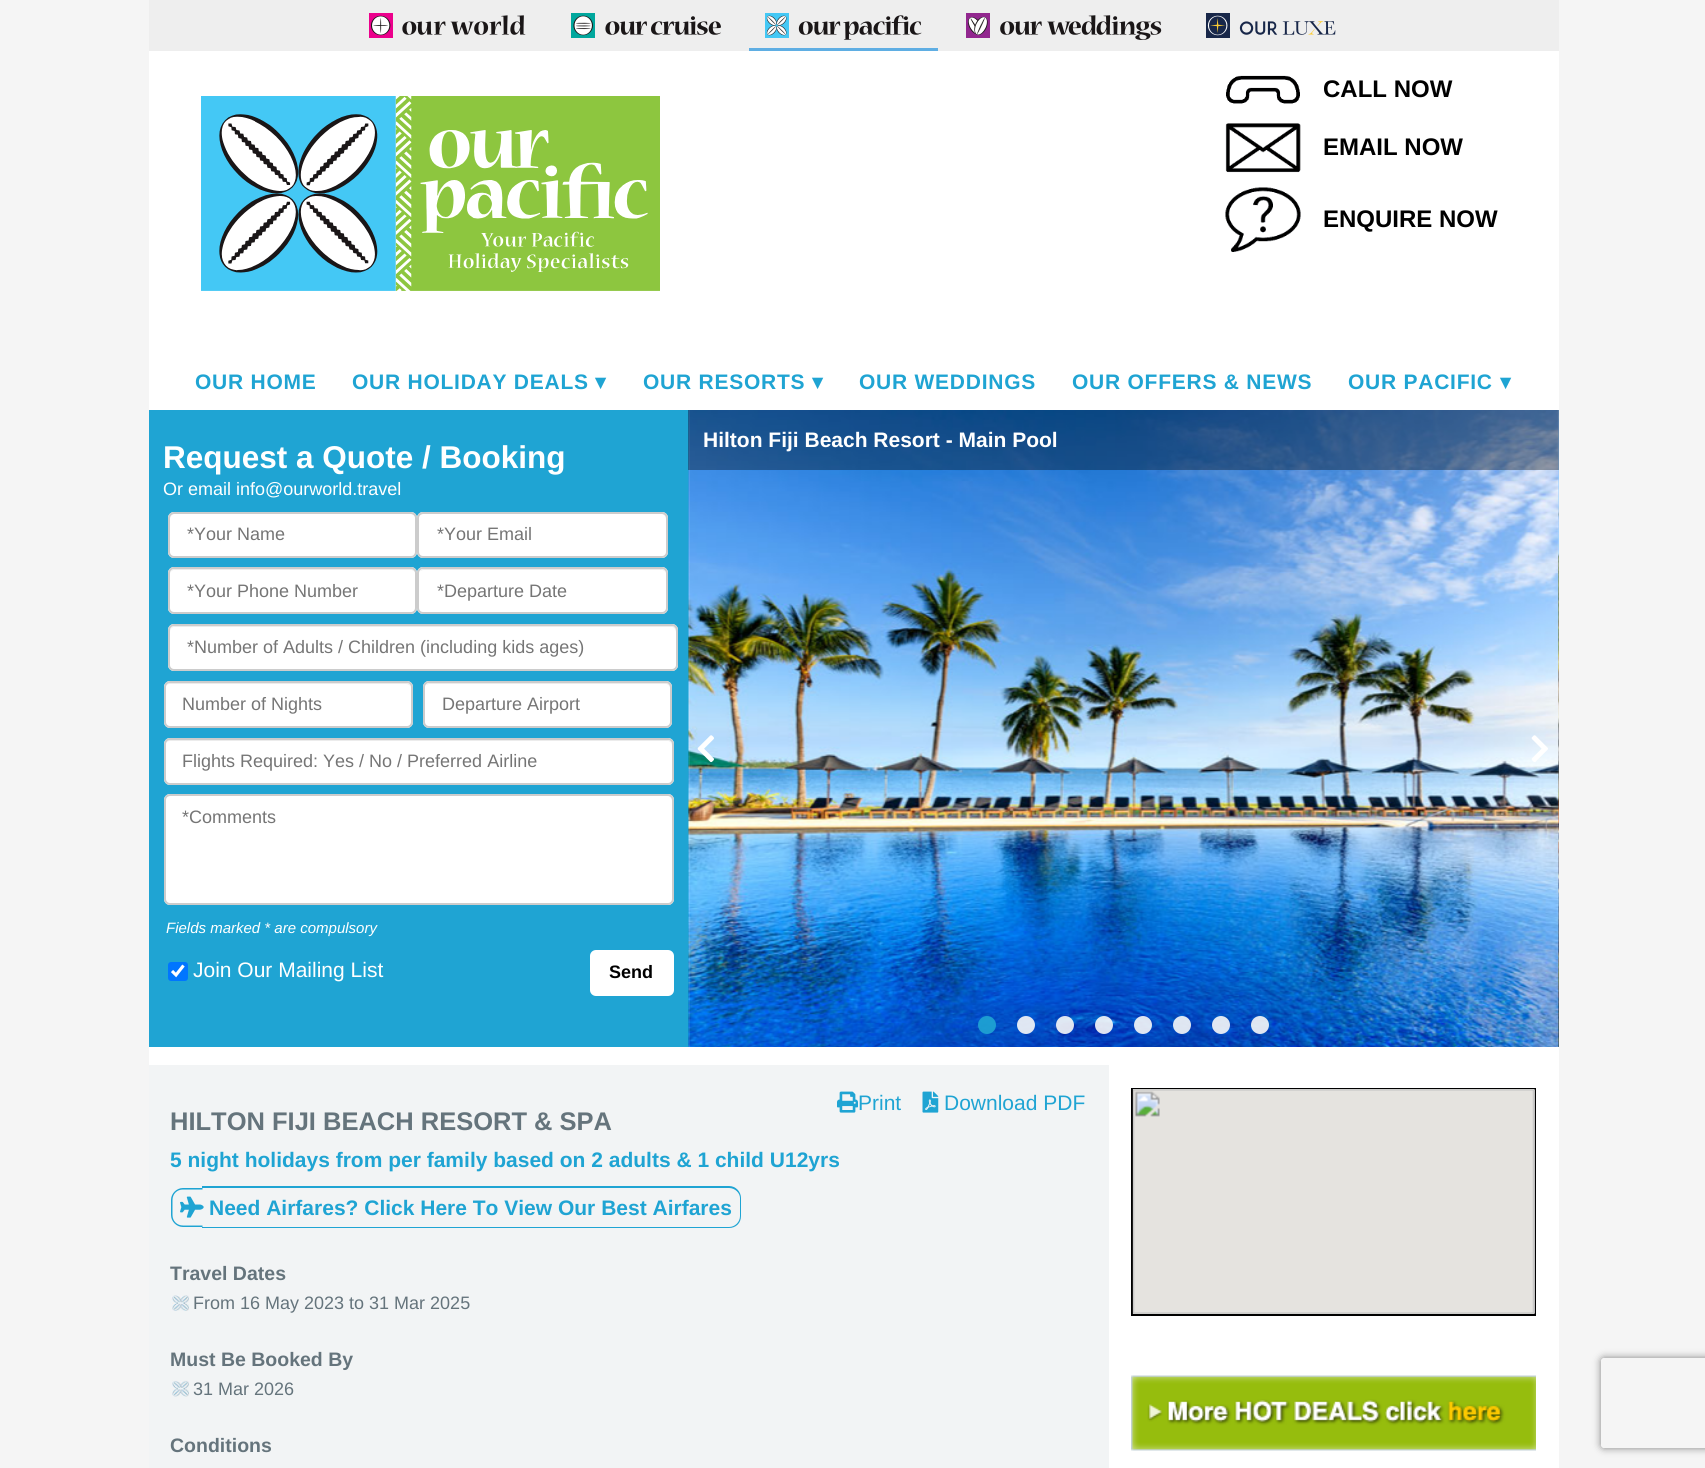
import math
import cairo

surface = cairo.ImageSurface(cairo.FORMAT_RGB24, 1705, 1468)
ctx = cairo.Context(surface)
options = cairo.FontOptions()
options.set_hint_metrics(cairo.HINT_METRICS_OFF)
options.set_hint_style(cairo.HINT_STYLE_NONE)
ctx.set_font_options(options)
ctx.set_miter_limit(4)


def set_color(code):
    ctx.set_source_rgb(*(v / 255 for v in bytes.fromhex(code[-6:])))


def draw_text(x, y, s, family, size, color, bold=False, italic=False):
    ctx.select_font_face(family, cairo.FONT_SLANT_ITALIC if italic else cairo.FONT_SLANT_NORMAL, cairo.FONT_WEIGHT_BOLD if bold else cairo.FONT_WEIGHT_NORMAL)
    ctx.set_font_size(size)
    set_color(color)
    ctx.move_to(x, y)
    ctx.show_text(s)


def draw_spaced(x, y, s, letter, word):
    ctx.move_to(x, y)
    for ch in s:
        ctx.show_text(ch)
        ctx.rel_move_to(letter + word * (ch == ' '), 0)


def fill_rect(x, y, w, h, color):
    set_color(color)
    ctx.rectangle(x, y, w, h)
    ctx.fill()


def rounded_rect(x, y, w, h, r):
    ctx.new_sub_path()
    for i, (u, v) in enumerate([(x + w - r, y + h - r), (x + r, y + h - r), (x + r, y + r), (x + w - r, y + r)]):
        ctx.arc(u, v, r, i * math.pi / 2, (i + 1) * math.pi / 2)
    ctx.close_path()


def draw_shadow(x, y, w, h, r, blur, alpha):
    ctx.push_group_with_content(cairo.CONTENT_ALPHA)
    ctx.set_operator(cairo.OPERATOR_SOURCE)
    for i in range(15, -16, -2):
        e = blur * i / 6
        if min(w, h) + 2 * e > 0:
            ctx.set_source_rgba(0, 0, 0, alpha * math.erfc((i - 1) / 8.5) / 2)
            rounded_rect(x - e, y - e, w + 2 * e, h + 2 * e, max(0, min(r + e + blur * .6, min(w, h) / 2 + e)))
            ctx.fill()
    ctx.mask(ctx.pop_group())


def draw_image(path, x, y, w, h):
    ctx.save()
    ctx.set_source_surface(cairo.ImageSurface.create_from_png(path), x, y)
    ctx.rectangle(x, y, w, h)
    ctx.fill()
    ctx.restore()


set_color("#f5f5f5")
ctx.paint()
fill_rect(149, 51, 1410, 359, "#ffffff")
fill_rect(149, 0, 1410, 51, "#eeeeee")
draw_image("assets/img1.png", 369, 13, 157, 25)
draw_image("assets/img2.png", 571, 13, 150, 25)
fill_rect(749, 48, 189, 3, "#5faee3")
draw_image("assets/img3.png", 765, 13, 157, 27)
draw_image("assets/img4.png", 966, 13, 196, 27)
draw_image("assets/img5.png", 1206, 13, 130, 25)
draw_image("assets/img6.png", 201, 96, 459, 195)
draw_image("assets/img7.png", 1226, 75, 74, 29)
draw_text(1323, 97, "CALL NOW", "Liberation Sans", 24, "#000000", bold=True)
draw_image("assets/img8.png", 1225, 123, 76, 50)
draw_text(1323, 155, "EMAIL NOW", "Liberation Sans", 24, "#000000", bold=True)
draw_image("assets/img9.png", 1225, 187, 76, 65)
draw_text(1323, 227, "ENQUIRE NOW", "Liberation Sans", 24, "#000000", bold=True)
ctx.set_font_size(21)
set_color("#1fa4d3")
draw_spaced(195, 389, "OUR HOME", 0.75, 0)
draw_spaced(352, 389, "OUR HOLIDAY DEALS", 0.75, 0)
ctx.select_font_face("DejaVu Sans", cairo.FONT_SLANT_NORMAL, cairo.FONT_WEIGHT_BOLD)
draw_spaced(595, 389, "▾", 0.75, 0)
ctx.select_font_face("Liberation Sans", cairo.FONT_SLANT_NORMAL, cairo.FONT_WEIGHT_BOLD)
draw_spaced(643, 389, "OUR RESORTS", 0.75, 0)
ctx.select_font_face("DejaVu Sans", cairo.FONT_SLANT_NORMAL, cairo.FONT_WEIGHT_BOLD)
draw_spaced(812, 389, "▾", 0.75, 0)
ctx.select_font_face("Liberation Sans", cairo.FONT_SLANT_NORMAL, cairo.FONT_WEIGHT_BOLD)
draw_spaced(859, 389, "OUR WEDDINGS", 0.75, 0)
draw_spaced(1072, 389, "OUR OFFERS & NEWS", 0.75, 0)
draw_spaced(1348, 389, "OUR PACIFIC", 0.75, 0)
ctx.select_font_face("DejaVu Sans", cairo.FONT_SLANT_NORMAL, cairo.FONT_WEIGHT_BOLD)
draw_spaced(1500, 389, "▾", 0.75, 0)
fill_rect(149, 410, 540, 637, "#1fa4d3")
draw_image("assets/img10.png", 688, 410, 871, 637)
ctx.set_source_rgba(0, 0, 0, 0.35)
ctx.rectangle(688, 410, 871, 60)
ctx.fill()
draw_text(703, 447, "Hilton Fiji Beach Resort - Main Pool", "Liberation Sans", 21, "#ffffff", bold=True)
draw_image("assets/img11.png", 1558, 410, 1, 637)
ctx.set_source_rgba(0, 0, 0, 0.17)
ctx.rectangle(1558, 410, 1, 60)
ctx.fill()
draw_image("assets/img12.png", 697, 735, 17, 28)
draw_image("assets/img13.png", 1531, 735, 17, 27)
ctx.set_source_rgba(0.122, 0.643, 0.827, 0.9)
ctx.arc(987, 1025, 9, 0, 2 * math.pi)
ctx.fill()
ctx.set_source_rgba(0.969, 0.969, 0.969, 0.9)
ctx.arc(1026, 1025, 9, 0, 2 * math.pi)
ctx.fill()
ctx.arc(1065, 1025, 9, 0, 2 * math.pi)
ctx.fill()
ctx.arc(1104, 1025, 9, 0, 2 * math.pi)
ctx.fill()
ctx.arc(1143, 1025, 9, 0, 2 * math.pi)
ctx.fill()
ctx.arc(1182, 1025, 9, 0, 2 * math.pi)
ctx.fill()
ctx.arc(1221, 1025, 9, 0, 2 * math.pi)
ctx.fill()
ctx.arc(1260, 1025, 9, 0, 2 * math.pi)
ctx.fill()
draw_text(163, 468, "Request a Quote / Booking", "Liberation Sans", 31.5, "#ffffff", bold=True)
draw_text(163, 495, "Or email info@ourworld.travel", "Liberation Sans", 18, "#ffffff")
rounded_rect(168, 512, 249, 46, 6)
ctx.fill()
set_color("#ececec")
ctx.new_path()
ctx.move_to(174, 514)
ctx.line_to(411, 514)
ctx.curve_to(413, 514, 416, 517, 416, 519)
ctx.line_to(416, 518)
ctx.curve_to(416, 515, 414, 513, 411, 513)
ctx.line_to(175, 513)
ctx.curve_to(172, 513, 170, 515, 170, 518)
ctx.line_to(170, 519)
ctx.curve_to(170, 517, 172, 514, 174, 514)
ctx.close_path()
ctx.fill()
rounded_rect(169, 513, 247, 44, 5)
set_color("#cccccc")
ctx.stroke()
draw_text(187, 540, "*Your Name", "Liberation Sans", 18, "#757575")
set_color("#ffffff")
rounded_rect(417, 512, 251, 46, 6)
ctx.fill()
set_color("#ececec")
ctx.new_path()
ctx.move_to(423, 514)
ctx.line_to(662, 514)
ctx.curve_to(664, 514, 666, 517, 666, 519)
ctx.line_to(666, 518)
ctx.curve_to(666, 515, 664, 513, 661, 513)
ctx.line_to(424, 513)
ctx.curve_to(422, 513, 420, 514, 419, 516)
ctx.curve_to(420, 515, 422, 514, 423, 514)
ctx.close_path()
ctx.fill()
rounded_rect(418, 513, 249, 44, 5)
set_color("#cccccc")
ctx.stroke()
draw_text(437, 540, "*Your Email", "Liberation Sans", 18, "#757575")
set_color("#ffffff")
rounded_rect(168, 567, 249, 47, 6)
ctx.fill()
set_color("#ececec")
ctx.new_path()
ctx.move_to(174, 570)
ctx.line_to(411, 570)
ctx.curve_to(413, 570, 416, 572, 416, 574)
ctx.curve_to(416, 571, 414, 569, 411, 569)
ctx.line_to(175, 569)
ctx.curve_to(172, 569, 170, 571, 170, 574)
ctx.curve_to(170, 572, 172, 570, 174, 570)
ctx.close_path()
ctx.fill()
rounded_rect(169, 568, 247, 45, 5)
set_color("#cccccc")
ctx.stroke()
draw_text(187, 597, "*Your Phone Number", "Liberation Sans", 18, "#757575")
set_color("#ffffff")
rounded_rect(417, 567, 251, 47, 6)
ctx.fill()
set_color("#ececec")
ctx.new_path()
ctx.move_to(423, 570)
ctx.line_to(662, 570)
ctx.curve_to(664, 570, 666, 572, 666, 574)
ctx.curve_to(666, 571, 664, 569, 661, 569)
ctx.line_to(424, 569)
ctx.curve_to(422, 569, 421, 570, 420, 571)
ctx.close_path()
ctx.fill()
rounded_rect(418, 568, 249, 45, 5)
set_color("#cccccc")
ctx.stroke()
draw_text(437, 597, "*Departure Date", "Liberation Sans", 18, "#757575")
set_color("#ffffff")
rounded_rect(168, 624, 510, 47, 6)
ctx.fill()
set_color("#ececec")
ctx.new_path()
ctx.move_to(174, 627)
ctx.line_to(672, 627)
ctx.curve_to(678, 627, 676, 641, 676, 643)
ctx.line_to(676, 667)
ctx.curve_to(677, 666, 677, 665, 677, 664)
ctx.line_to(677, 631)
ctx.curve_to(677, 628, 675, 626, 672, 626)
ctx.line_to(175, 626)
ctx.curve_to(172, 626, 170, 628, 170, 631)
ctx.line_to(170, 632)
ctx.curve_to(170, 629, 172, 627, 174, 627)
ctx.close_path()
ctx.fill()
rounded_rect(169, 625, 508, 45, 5)
set_color("#cccccc")
ctx.stroke()
draw_text(187, 653, "*Number of Adults / Children (including kids ages)", "Liberation Sans", 18, "#757575")
set_color("#ffffff")
rounded_rect(164, 681, 249, 47, 6)
ctx.fill()
set_color("#ececec")
ctx.new_path()
ctx.move_to(170, 684)
ctx.line_to(406, 684)
ctx.curve_to(409, 684, 411, 686, 411, 688)
ctx.curve_to(411, 685, 409, 683, 406, 683)
ctx.line_to(170, 683)
ctx.curve_to(167, 683, 165, 685, 165, 688)
ctx.curve_to(165, 686, 167, 684, 170, 684)
ctx.close_path()
ctx.fill()
rounded_rect(165, 682, 247, 45, 5)
set_color("#cccccc")
ctx.stroke()
draw_text(182, 710, "Number of Nights", "Liberation Sans", 18, "#757575")
set_color("#ffffff")
rounded_rect(423, 681, 249, 47, 6)
ctx.fill()
set_color("#ececec")
ctx.new_path()
ctx.move_to(429, 684)
ctx.line_to(666, 684)
ctx.curve_to(668, 684, 670, 686, 670, 688)
ctx.line_to(670, 724)
ctx.curve_to(671, 723, 671, 722, 671, 721)
ctx.line_to(671, 688)
ctx.curve_to(671, 685, 669, 683, 666, 683)
ctx.line_to(430, 683)
ctx.curve_to(428, 683, 427, 684, 426, 685)
ctx.close_path()
ctx.fill()
rounded_rect(424, 682, 247, 45, 5)
set_color("#cccccc")
ctx.stroke()
draw_text(442, 710, "Departure Airport", "Liberation Sans", 18, "#757575")
set_color("#ffffff")
rounded_rect(164, 738, 510, 47, 6)
ctx.fill()
set_color("#ececec")
ctx.new_path()
ctx.move_to(170, 741)
ctx.line_to(668, 741)
ctx.curve_to(670, 741, 672, 743, 672, 746)
ctx.line_to(672, 745)
ctx.curve_to(672, 742, 670, 740, 667, 740)
ctx.line_to(170, 740)
ctx.curve_to(167, 740, 165, 742, 165, 745)
ctx.line_to(165, 746)
ctx.curve_to(165, 743, 167, 741, 170, 741)
ctx.close_path()
ctx.fill()
rounded_rect(165, 739, 508, 45, 5)
set_color("#cccccc")
ctx.stroke()
draw_text(182, 767, "Flights Required: Yes / No / Preferred Airline", "Liberation Sans", 18, "#757575")
set_color("#ffffff")
rounded_rect(164, 794, 510, 111, 6)
ctx.fill()
set_color("#ececec")
ctx.new_path()
ctx.move_to(170, 796)
ctx.line_to(668, 796)
ctx.curve_to(670, 796, 672, 799, 672, 801)
ctx.line_to(672, 800)
ctx.curve_to(672, 797, 670, 795, 667, 795)
ctx.line_to(170, 795)
ctx.curve_to(167, 795, 165, 797, 165, 800)
ctx.line_to(165, 801)
ctx.curve_to(165, 799, 167, 796, 170, 796)
ctx.close_path()
ctx.fill()
rounded_rect(165, 795, 508, 109, 5)
set_color("#cccccc")
ctx.stroke()
draw_text(182, 823, "*Comments", "Liberation Sans", 18, "#757575")
draw_text(166, 933, "Fields marked * are compulsory", "Liberation Sans", 15, "#ffffff", italic=True)
set_color("#0075ff")
rounded_rect(168, 962, 20, 19, 3)
ctx.fill()
ctx.new_path()
ctx.move_to(172, 971)
ctx.line_to(176, 975)
ctx.line_to(183.5, 965.5)
set_color("#ffffff")
ctx.set_line_width(3.1)
ctx.stroke()
draw_text(193, 977, "Join Our Mailing List", "Liberation Sans", 21, "#ffffff")
rounded_rect(590, 950, 84, 46, 6)
ctx.fill()
draw_text(609, 978, "Send", "Liberation Sans", 18, "#000000", bold=True)
fill_rect(149, 1047, 1410, 421, "#ffffff")
fill_rect(149, 1065, 960, 403, "#f2f4f5")
draw_image("assets/img14.png", 837, 1091, 21, 22)
draw_text(858, 1110, "Print", "Liberation Sans", 21, "#1fa4d3")
draw_image("assets/img15.png", 922, 1091, 17, 22)
draw_text(944, 1110, "Download PDF", "Liberation Sans", 21, "#1fa4d3")
draw_text(170, 1130, "HILTON FIJI BEACH RESORT & SPA", "Liberation Sans", 25.5, "#65747c", bold=True)
draw_text(170, 1167, "5 night holidays from per family based on 2 adults & 1 child U12yrs", "Liberation Sans", 21, "#1fa4d3", bold=True)
ctx.set_fill_rule(cairo.FILL_RULE_EVEN_ODD)
ctx.new_path()
ctx.move_to(183, 1188)
ctx.line_to(202.5, 1188)
ctx.line_to(202.5, 1227)
ctx.line_to(183, 1227)
ctx.curve_to(176.5, 1227, 171, 1221.5, 171, 1215)
ctx.line_to(171, 1200)
ctx.curve_to(171, 1193.5, 176.5, 1188, 183, 1188)
ctx.close_path()
ctx.move_to(183, 1189.5)
ctx.line_to(202.5, 1189.5)
ctx.line_to(202.5, 1225.5)
ctx.line_to(183, 1225.5)
ctx.curve_to(177, 1225.5, 172.5, 1221, 172.5, 1215)
ctx.line_to(172.5, 1200)
ctx.curve_to(172.5, 1194, 177, 1189.5, 183, 1189.5)
ctx.close_path()
ctx.fill()
ctx.new_path()
ctx.move_to(202, 1186)
ctx.line_to(729, 1186)
ctx.curve_to(736, 1186, 741, 1192, 741, 1198)
ctx.line_to(741, 1216)
ctx.curve_to(741, 1223, 736, 1228, 729, 1228)
ctx.line_to(202, 1228)
ctx.close_path()
ctx.move_to(202, 1188)
ctx.line_to(729, 1188)
ctx.curve_to(735, 1188, 740, 1193, 740, 1198)
ctx.line_to(740, 1216)
ctx.curve_to(740, 1222, 735, 1227, 729, 1227)
ctx.line_to(202, 1227)
ctx.close_path()
ctx.fill()
draw_image("assets/img16.png", 180, 1196, 24, 22)
draw_text(209, 1215, "Need Airfares? Click Here To View Our Best Airfares", "Liberation Sans", 21, "#1fa4d3", bold=True)
draw_text(170, 1280, "Travel Dates", "Liberation Sans", 19.5, "#65747c", bold=True)
draw_image("assets/img17.png", 171, 1295, 18, 16)
draw_text(193, 1309, "From 16 May 2023 to 31 Mar 2025", "Liberation Sans", 18, "#65747c")
draw_text(170, 1366, "Must Be Booked By", "Liberation Sans", 19.5, "#65747c", bold=True)
draw_image("assets/img18.png", 172, 1380, 17, 17)
draw_text(193, 1395, "31 Mar 2026", "Liberation Sans", 18, "#65747c")
draw_text(170, 1452, "Conditions", "Liberation Sans", 19.5, "#65747c", bold=True)
ctx.rectangle(1132, 1089, 403, 226)
set_color("#000000")
ctx.set_line_width(2)
ctx.stroke()
draw_image("assets/img19.png", 1132, 1089, 403, 225)
draw_image("assets/img20.png", 1131, 1375, 405, 76)
ctx.save()
ctx.new_path()
ctx.move_to(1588, 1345)
ctx.line_to(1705, 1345)
ctx.line_to(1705, 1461)
ctx.line_to(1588, 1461)
ctx.close_path()
ctx.move_to(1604, 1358)
ctx.line_to(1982, 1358)
ctx.curve_to(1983.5, 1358, 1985, 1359.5, 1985, 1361)
ctx.line_to(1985, 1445)
ctx.curve_to(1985, 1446.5, 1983.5, 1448, 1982, 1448)
ctx.line_to(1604, 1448)
ctx.curve_to(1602.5, 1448, 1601, 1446.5, 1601, 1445)
ctx.line_to(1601, 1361)
ctx.curve_to(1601, 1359.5, 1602.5, 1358, 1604, 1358)
ctx.close_path()
ctx.clip()
set_color("#808080")
draw_shadow(1601, 1358, 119, 90, 3, 4, 1)
ctx.restore()
surface.write_to_png("output.png")
